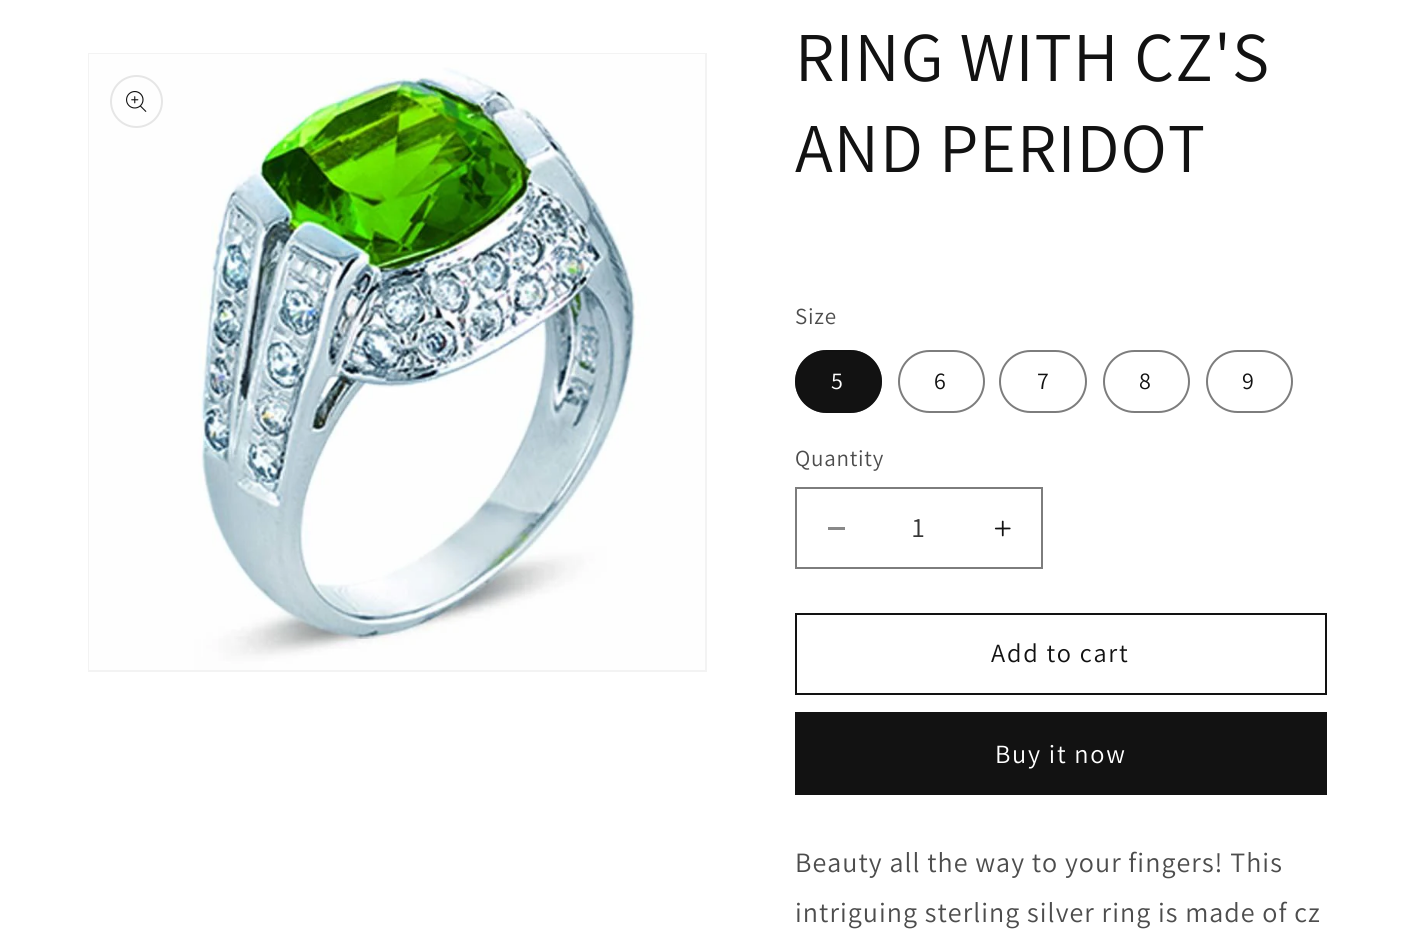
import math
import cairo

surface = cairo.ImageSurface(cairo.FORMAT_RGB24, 1414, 933)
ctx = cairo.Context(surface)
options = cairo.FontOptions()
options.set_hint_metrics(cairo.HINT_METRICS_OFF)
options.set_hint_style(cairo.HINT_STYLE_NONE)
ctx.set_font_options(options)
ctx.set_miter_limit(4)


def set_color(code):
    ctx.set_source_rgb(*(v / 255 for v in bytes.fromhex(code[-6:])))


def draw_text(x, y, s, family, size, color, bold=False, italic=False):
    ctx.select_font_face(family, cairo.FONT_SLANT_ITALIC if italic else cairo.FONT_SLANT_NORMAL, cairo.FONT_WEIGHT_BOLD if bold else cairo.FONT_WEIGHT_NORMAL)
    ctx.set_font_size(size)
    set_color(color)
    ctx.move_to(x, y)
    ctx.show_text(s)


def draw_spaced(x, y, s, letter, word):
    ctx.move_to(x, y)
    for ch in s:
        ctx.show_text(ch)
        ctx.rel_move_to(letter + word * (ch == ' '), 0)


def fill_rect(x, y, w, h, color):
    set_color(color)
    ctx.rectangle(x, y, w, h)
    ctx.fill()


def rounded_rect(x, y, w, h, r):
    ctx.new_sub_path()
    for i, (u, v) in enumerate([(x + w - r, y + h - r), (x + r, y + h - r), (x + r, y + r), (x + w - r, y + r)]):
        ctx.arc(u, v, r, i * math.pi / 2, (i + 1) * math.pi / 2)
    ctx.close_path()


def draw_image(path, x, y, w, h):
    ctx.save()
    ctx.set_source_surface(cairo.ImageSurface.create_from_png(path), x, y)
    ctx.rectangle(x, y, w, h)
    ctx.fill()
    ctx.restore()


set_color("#ffffff")
ctx.paint()
ctx.rectangle(89, 54, 617, 617)
set_color("#f3f3f3")
ctx.stroke()
draw_image("assets/img1.png", 89, 54, 616, 616)
ctx.arc(136.5, 101.5, 25.5, 0, 2 * math.pi)
set_color("#e6e6e6")
ctx.stroke()
draw_image("assets/img2.png", 126, 91, 21, 21)
ctx.select_font_face("Assistant")
ctx.set_font_size(70)
set_color("#121212")
draw_spaced(795, 81, "RING WITH CZ'S", 1.05, 0)
draw_spaced(795, 172, "AND PERIDOT", 1.05, 0)
ctx.set_font_size(23)
set_color("#4d4d4d")
draw_spaced(795, 324, "Size", 0.75, 0)
set_color("#121212")
rounded_rect(795, 350, 87, 63, 31.5)
ctx.fill()
rounded_rect(796, 351, 85, 61, 30.5)
ctx.set_source_rgba(0.071, 0.071, 0.071, 0.55)
ctx.stroke()
ctx.set_font_size(24)
set_color("#ffffff")
draw_spaced(831, 389, "5", 1.75, 0)
rounded_rect(899, 351, 85, 61, 30.5)
set_color("#7d7d7d")
ctx.stroke()
set_color("#121212")
draw_spaced(934, 389, "6", 1.75, 0)
rounded_rect(1000, 351, 86, 61, 30.5)
set_color("#7d7d7d")
ctx.stroke()
set_color("#121212")
draw_spaced(1037, 389, "7", 1.75, 0)
rounded_rect(1104, 351, 85, 61, 30.5)
set_color("#7d7d7d")
ctx.stroke()
set_color("#121212")
draw_spaced(1139, 389, "8", 1.75, 0)
rounded_rect(1207, 351, 85, 61, 30.5)
set_color("#7d7d7d")
ctx.stroke()
set_color("#121212")
draw_spaced(1242, 389, "9", 1.75, 0)
ctx.set_font_size(23)
set_color("#4d4d4d")
draw_spaced(795, 466, "Quantity", 0.75, 0)
fill_rect(828, 527, 17, 3, "#898989")
draw_image("assets/img3.png", 994, 520, 17, 17)
ctx.rectangle(796, 488, 246, 80)
set_color("#7d7d7d")
ctx.stroke()
draw_text(912, 537, "1", "Assistant", 28, "#363636")
ctx.rectangle(796, 614, 530, 80)
set_color("#121212")
ctx.stroke()
ctx.set_font_size(26.25)
draw_spaced(991, 662, "Add to cart", 1.75, 0)
fill_rect(795, 712, 532, 83, "#121212")
set_color("#ffffff")
draw_spaced(995, 763, "Buy it now", 1.75, 0)
ctx.set_font_size(28)
set_color("#4d4d4d")
draw_spaced(795, 872, "Beauty all the way to your fingers! This", 1.05, 0)
draw_spaced(795, 922, "intriguing sterling silver ring is made of cz", 1.05, 0)
surface.write_to_png("output.png")
